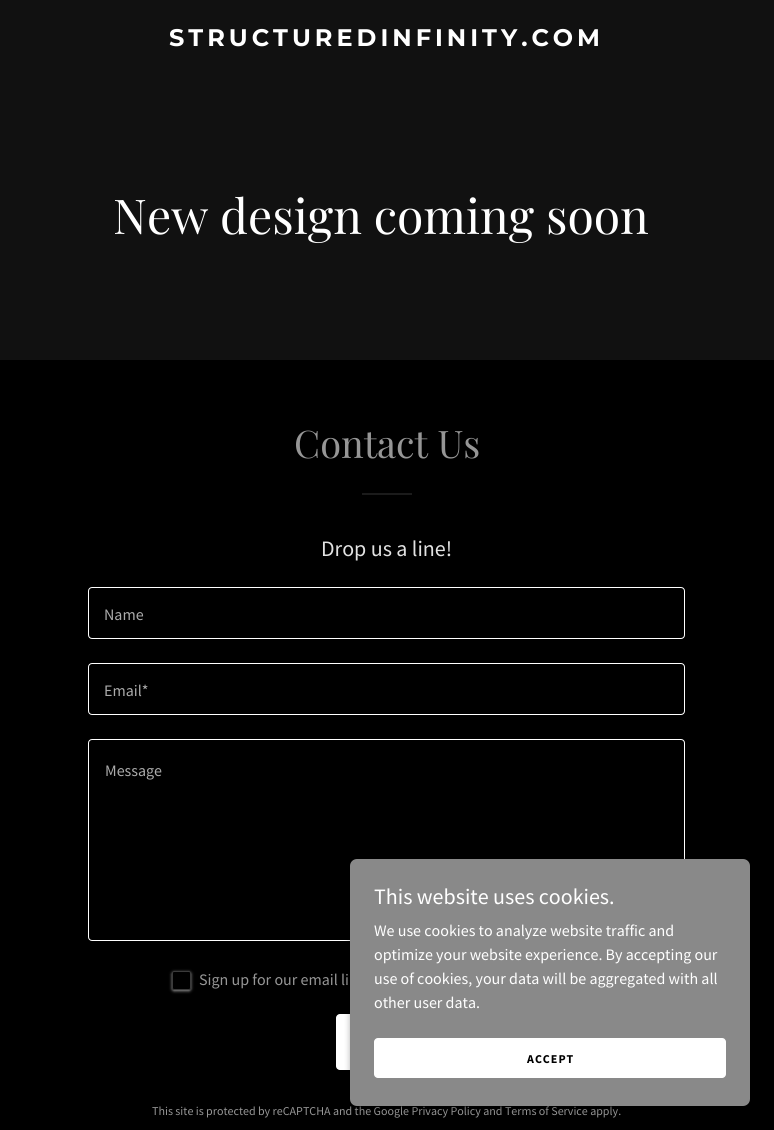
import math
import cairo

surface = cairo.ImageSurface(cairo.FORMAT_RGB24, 774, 1130)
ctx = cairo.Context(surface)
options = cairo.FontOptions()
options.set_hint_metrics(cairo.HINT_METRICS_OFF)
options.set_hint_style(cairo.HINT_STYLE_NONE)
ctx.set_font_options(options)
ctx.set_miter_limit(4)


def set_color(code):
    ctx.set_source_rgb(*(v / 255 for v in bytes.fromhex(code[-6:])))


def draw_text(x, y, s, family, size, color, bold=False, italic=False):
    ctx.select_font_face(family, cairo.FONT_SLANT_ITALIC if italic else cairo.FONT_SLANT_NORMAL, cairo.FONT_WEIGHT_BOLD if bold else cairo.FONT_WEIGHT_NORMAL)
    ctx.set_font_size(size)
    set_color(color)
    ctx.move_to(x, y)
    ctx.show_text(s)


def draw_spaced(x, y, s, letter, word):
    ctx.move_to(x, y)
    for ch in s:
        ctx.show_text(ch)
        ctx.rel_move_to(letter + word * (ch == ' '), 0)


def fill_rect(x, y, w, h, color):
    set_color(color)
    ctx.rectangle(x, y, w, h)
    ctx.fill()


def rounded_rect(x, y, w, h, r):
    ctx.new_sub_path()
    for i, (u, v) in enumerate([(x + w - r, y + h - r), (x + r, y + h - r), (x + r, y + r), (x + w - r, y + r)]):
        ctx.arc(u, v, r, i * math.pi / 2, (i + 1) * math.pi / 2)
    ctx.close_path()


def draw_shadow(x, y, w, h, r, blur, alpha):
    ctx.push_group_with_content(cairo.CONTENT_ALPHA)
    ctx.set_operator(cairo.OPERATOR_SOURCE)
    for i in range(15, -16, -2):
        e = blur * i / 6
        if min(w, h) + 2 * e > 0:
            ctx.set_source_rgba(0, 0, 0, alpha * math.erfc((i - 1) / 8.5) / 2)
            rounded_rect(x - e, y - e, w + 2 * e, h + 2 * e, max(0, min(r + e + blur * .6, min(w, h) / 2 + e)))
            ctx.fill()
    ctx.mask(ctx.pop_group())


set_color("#000000")
ctx.paint()
fill_rect(0, 0, 774, 360, "#111111")
ctx.select_font_face("Montserrat", cairo.FONT_SLANT_NORMAL, cairo.FONT_WEIGHT_BOLD)
ctx.set_font_size(24)
set_color("#ffffff")
draw_spaced(169, 46, "STRUCTUREDINFINITY.COM", 4, 0)
draw_text(113, 234, "New design coming soon", "Playfair Display", 48, "#ffffff")
draw_text(294, 458, "Contact Us", "Playfair Display", 38, "#969696")
fill_rect(362, 493, 50, 2, "#1b1b1b")
draw_text(321, 556, "Drop us a line!", "Source Sans Pro", 22, "#e2e2e2")
rounded_rect(88.5, 587.5, 596, 51, 3.5)
set_color("#ffffff")
ctx.set_line_width(1)
ctx.stroke()
draw_text(104, 620, "Name", "Source Sans Pro", 16, "#ababab")
rounded_rect(88.5, 663.5, 596, 51, 3.5)
set_color("#ffffff")
ctx.stroke()
draw_text(104, 696, "Email*", "Source Sans Pro", 16, "#ababab")
rounded_rect(88.5, 739.5, 596, 201, 3.5)
set_color("#ffffff")
ctx.stroke()
draw_text(105, 776, "Message", "Source Sans Pro", 16, "#ababab")
ctx.save()
ctx.set_fill_rule(cairo.FILL_RULE_EVEN_ODD)
ctx.new_path()
ctx.move_to(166, 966)
ctx.line_to(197, 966)
ctx.line_to(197, 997)
ctx.line_to(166, 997)
ctx.close_path()
ctx.move_to(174, 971)
ctx.line_to(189, 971)
ctx.curve_to(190, 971, 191, 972, 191, 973)
ctx.line_to(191, 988)
ctx.curve_to(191, 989, 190, 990, 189, 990)
ctx.line_to(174, 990)
ctx.curve_to(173, 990, 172, 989, 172, 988)
ctx.line_to(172, 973)
ctx.curve_to(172, 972, 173, 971, 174, 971)
ctx.close_path()
ctx.clip()
set_color("#969696")
draw_shadow(172, 972, 19, 19, 2, 1.5, 1)
ctx.restore()
rounded_rect(172.5, 971.5, 18, 18, 1.5)
ctx.set_source_rgba(0.467, 0.467, 0.467, 0.5)
ctx.stroke()
draw_text(199, 985, "Sign up for our email li", "Source Sans Pro", 16, "#969696")
set_color("#ffffff")
rounded_rect(336, 1014, 102, 56, 4)
ctx.fill()
draw_text(152, 1115, "This site is protected by reCAPTCHA and the Google Privacy Policy and Terms of Service apply.", "Source Sans Pro", 12, "#969696")
set_color("#000000")
draw_shadow(350, 861, 400, 247, 7, 3, 0.3)
set_color("#898989")
rounded_rect(350, 859, 400, 247, 7)
ctx.fill()
draw_text(374, 904, "This website uses cookies.", "Source Sans Pro", 22, "#ffffff")
draw_text(374, 936, "We use cookies to analyze website traffic and", "Source Sans Pro", 16, "#ffffff")
draw_text(374, 960, "optimize your website experience. By accepting our", "Source Sans Pro", 16, "#ffffff")
draw_text(374, 984, "use of cookies, your data will be aggregated with all", "Source Sans Pro", 16, "#ffffff")
draw_text(374, 1008, "other user data.", "Source Sans Pro", 16, "#ffffff")
rounded_rect(374, 1038, 352, 40, 4)
ctx.fill()
ctx.select_font_face("Source Sans Pro", cairo.FONT_SLANT_NORMAL, cairo.FONT_WEIGHT_BOLD)
ctx.set_font_size(12)
set_color("#000000")
draw_spaced(527, 1063, "ACCEPT", 1, 0)
surface.write_to_png("output.png")
